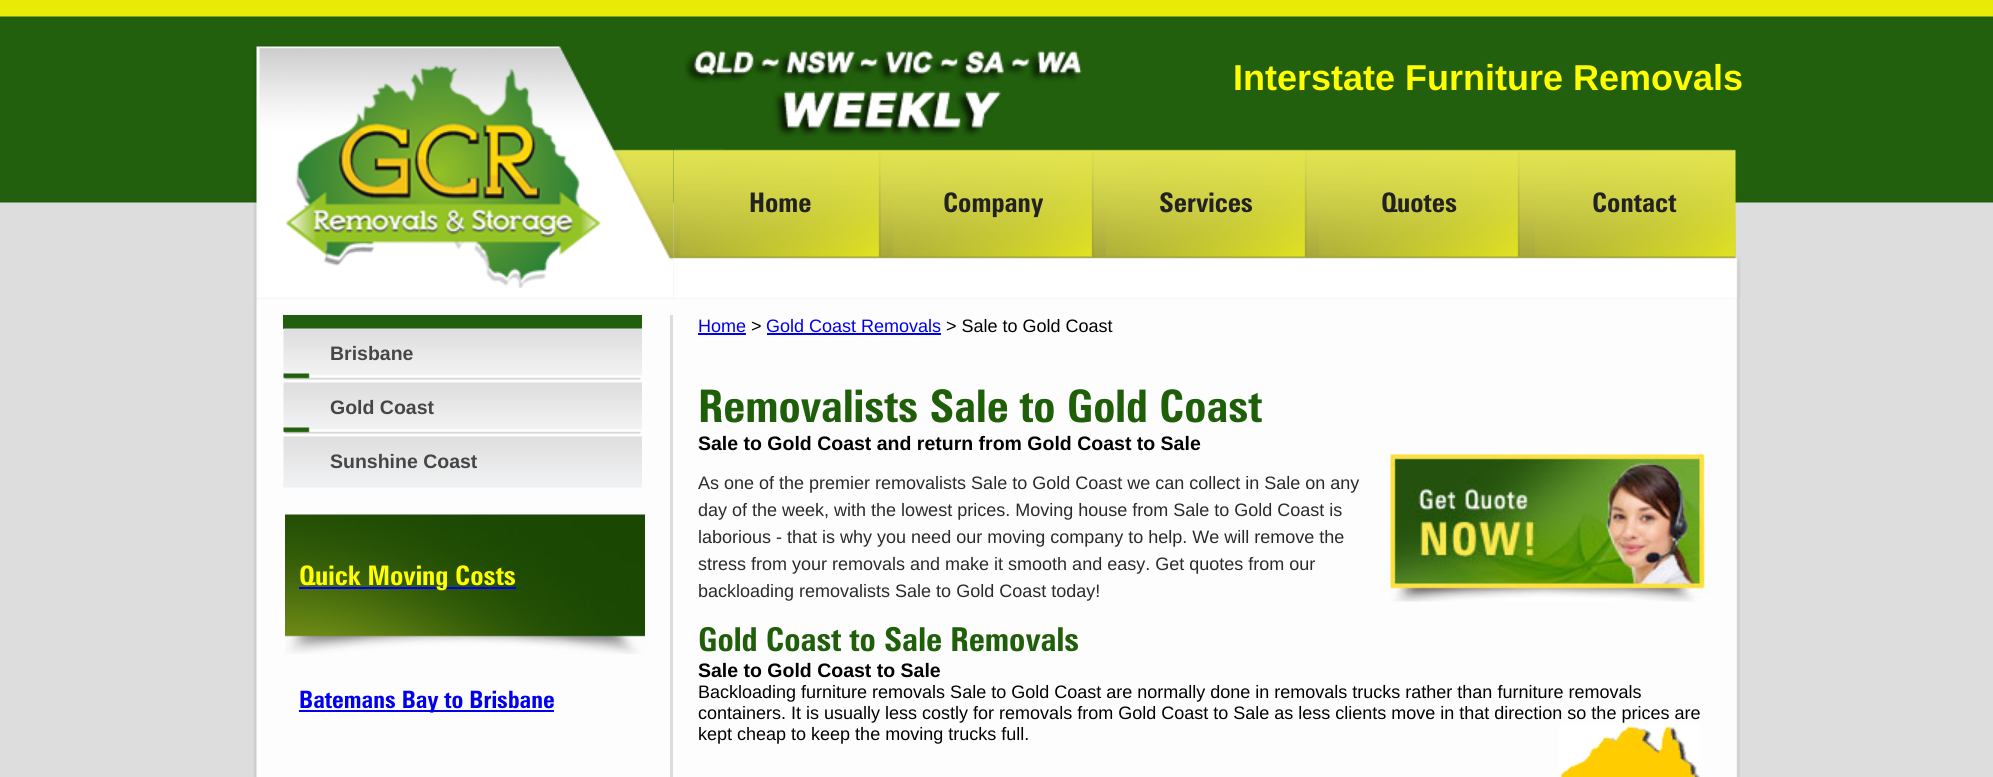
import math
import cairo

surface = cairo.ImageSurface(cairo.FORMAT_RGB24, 1993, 777)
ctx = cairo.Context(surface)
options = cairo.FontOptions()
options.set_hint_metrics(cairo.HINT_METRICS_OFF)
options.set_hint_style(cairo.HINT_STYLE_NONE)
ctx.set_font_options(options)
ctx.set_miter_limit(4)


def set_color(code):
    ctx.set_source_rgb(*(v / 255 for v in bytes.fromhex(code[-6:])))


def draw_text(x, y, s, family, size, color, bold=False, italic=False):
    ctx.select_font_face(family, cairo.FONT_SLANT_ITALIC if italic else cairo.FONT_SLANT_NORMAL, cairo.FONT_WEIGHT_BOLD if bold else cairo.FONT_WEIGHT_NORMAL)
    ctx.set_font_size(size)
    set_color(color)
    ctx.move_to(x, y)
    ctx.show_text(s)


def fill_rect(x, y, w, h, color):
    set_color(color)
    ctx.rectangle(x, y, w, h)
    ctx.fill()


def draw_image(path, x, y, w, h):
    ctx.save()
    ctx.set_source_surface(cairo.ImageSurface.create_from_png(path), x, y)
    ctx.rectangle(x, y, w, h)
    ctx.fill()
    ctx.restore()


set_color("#dddddd")
ctx.paint()
draw_image("assets/img1.png", 0, 0, 1993, 203)
draw_image("assets/img2.png", 253, 45, 421, 254)
draw_image("assets/img3.png", 286, 65, 315, 224)
draw_image("assets/img4.png", 684, 50, 398, 87)
draw_text(1233, 90, "Interstate Furniture Removals", "Liberation Sans", 36, "#ffff00", bold=True)
draw_image("assets/img5.png", 673, 148, 1068, 151)
draw_image("assets/img6.png", 680, 151, 201, 106)
draw_text(749, 212, "Home", "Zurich", 27, "#222222", bold=True)
draw_image("assets/img7.png", 893, 151, 201, 106)
draw_text(943, 212, "Company", "Zurich", 27, "#222222", bold=True)
draw_image("assets/img8.png", 1106, 151, 201, 106)
draw_text(1159, 212, "Services", "Zurich", 27, "#222222", bold=True)
draw_image("assets/img9.png", 1319, 151, 201, 106)
draw_text(1381, 212, "Quotes", "Zurich", 27, "#222222", bold=True)
draw_image("assets/img10.png", 1535, 151, 201, 106)
draw_text(1592, 212, "Contact", "Zurich", 27, "#222222", bold=True)
draw_image("assets/img11.png", 253, 298, 1487, 479)
fill_rect(670, 315, 3, 462, "#dcdcdc")
fill_rect(283, 315, 359, 14, "#215f0c")
draw_image("assets/img12.png", 283, 328, 359, 52)
draw_text(330, 360, "Brisbane", "Liberation Sans", 19.5, "#454646", bold=True)
draw_image("assets/img13.png", 283, 382, 359, 52)
draw_text(330, 414, "Gold Coast", "Liberation Sans", 19.5, "#454646", bold=True)
draw_image("assets/img14.png", 283, 436, 359, 52)
draw_text(330, 468, "Sunshine Coast", "Liberation Sans", 19.5, "#454646", bold=True)
draw_image("assets/img15.png", 285, 514, 360, 140)
fill_rect(299, 587, 217, 2, "#0000ee")
draw_text(299, 585, "Quick Moving Costs", "Zurich", 27, "#ffff00", bold=True)
fill_rect(299, 710, 255, 2, "#0000ee")
draw_text(299, 708, "Batemans Bay to Brisbane", "Zurich", 24, "#0000ee", bold=True)
draw_text(698, 332, "Home", "Liberation Sans", 18, "#0000ee")
fill_rect(698, 333, 48, 2, "#0000ee")
draw_text(751, 332, ">", "Liberation Sans", 18, "#000000")
draw_text(766, 332, "Gold Coast Removals", "Liberation Sans", 18, "#0000ee")
fill_rect(767, 333, 174, 2, "#0000ee")
draw_text(946, 332, "> Sale to Gold Coast", "Liberation Sans", 18, "#000000")
draw_text(698, 422, "Removalists Sale to Gold Coast", "Zurich", 45, "#1f5f0a", bold=True)
draw_text(698, 450, "Sale to Gold Coast and return from Gold Coast to Sale", "Liberation Sans", 19.5, "#000000", bold=True)
draw_text(698, 489, "As one of the premier removalists Sale to Gold Coast we can collect in Sale on any", "Liberation Sans", 18, "#292a2a")
draw_text(698, 516, "day of the week, with the lowest prices. Moving house from Sale to Gold Coast is", "Liberation Sans", 18, "#292a2a")
draw_text(698, 543, "laborious - that is why you need our moving company to help. We will remove the", "Liberation Sans", 18, "#292a2a")
draw_text(698, 570, "stress from your removals and make it smooth and easy. Get quotes from our", "Liberation Sans", 18, "#292a2a")
draw_text(698, 597, "backloading removalists Sale to Gold Coast today!", "Liberation Sans", 18, "#292a2a")
draw_image("assets/img16.png", 1384, 454, 325, 148)
draw_text(698, 651, "Gold Coast to Sale Removals", "Zurich", 33, "#1f5f0a", bold=True)
draw_text(698, 677, "Sale to Gold Coast to Sale", "Liberation Sans", 19.5, "#000000", bold=True)
draw_text(698, 698, "Backloading furniture removals Sale to Gold Coast are normally done in removals trucks rather than furniture removals", "Liberation Sans", 18, "#000000")
draw_text(698, 719, "containers. It is usually less costly for removals from Gold Coast to Sale as less clients move in that direction so the prices are", "Liberation Sans", 18, "#000000")
draw_text(698, 740, "kept cheap to keep the moving trucks full.", "Liberation Sans", 18, "#000000")
draw_image("assets/img17.png", 1559, 725, 141, 52)
surface.write_to_png("output.png")
